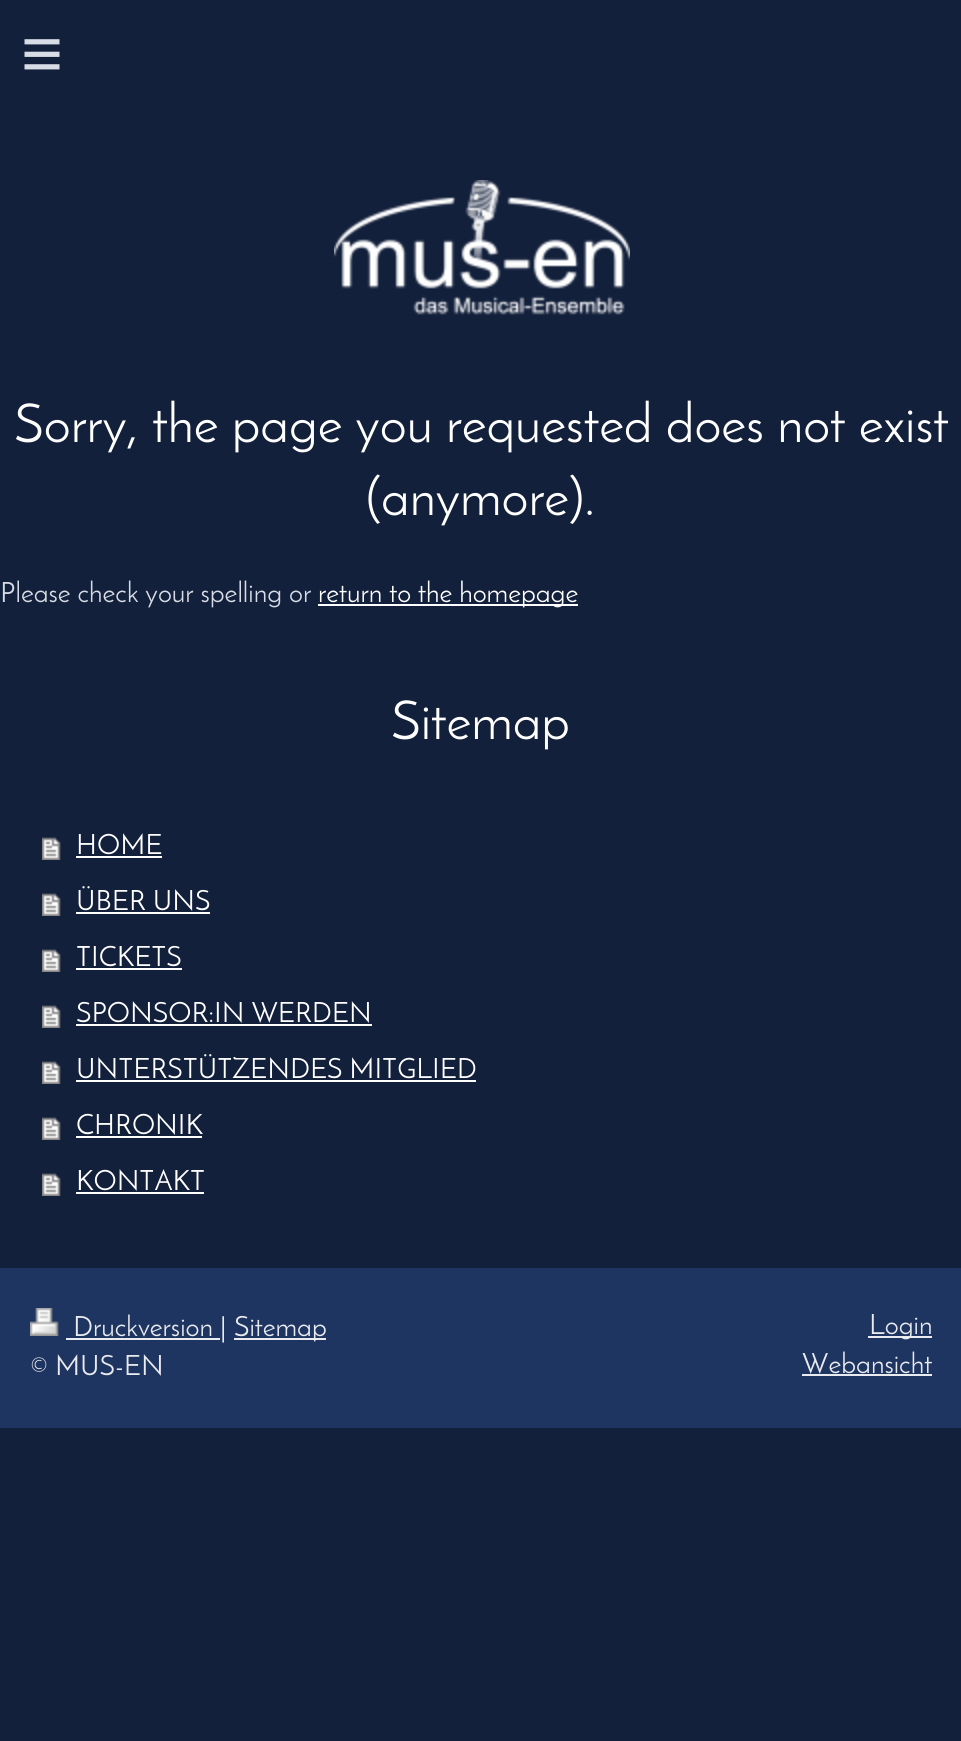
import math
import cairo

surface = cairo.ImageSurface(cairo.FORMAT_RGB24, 961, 1741)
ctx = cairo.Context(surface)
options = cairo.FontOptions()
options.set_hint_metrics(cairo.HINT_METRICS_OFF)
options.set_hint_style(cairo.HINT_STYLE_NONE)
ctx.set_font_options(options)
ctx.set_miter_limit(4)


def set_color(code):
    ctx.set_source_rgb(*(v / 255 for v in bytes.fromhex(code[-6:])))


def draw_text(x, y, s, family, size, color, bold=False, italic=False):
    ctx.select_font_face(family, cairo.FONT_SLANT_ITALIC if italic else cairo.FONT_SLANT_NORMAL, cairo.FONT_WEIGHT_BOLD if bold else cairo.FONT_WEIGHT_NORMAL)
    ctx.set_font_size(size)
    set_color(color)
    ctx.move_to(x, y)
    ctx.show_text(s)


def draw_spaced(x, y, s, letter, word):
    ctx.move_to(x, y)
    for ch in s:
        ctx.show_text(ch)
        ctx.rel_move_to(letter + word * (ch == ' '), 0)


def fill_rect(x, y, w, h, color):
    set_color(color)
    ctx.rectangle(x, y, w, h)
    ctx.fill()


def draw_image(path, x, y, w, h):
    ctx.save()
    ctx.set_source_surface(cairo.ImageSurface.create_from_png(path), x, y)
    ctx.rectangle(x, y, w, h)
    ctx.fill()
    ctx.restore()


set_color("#13203b")
ctx.paint()
ctx.select_font_face("Liberation Sans")
ctx.set_font_size(72)
set_color("#d7dce6")
draw_spaced(21, 78, "≡", 21, 0)
draw_image("assets/img1.png", 334, 180, 296, 135)
draw_text(14, 442, "Sorry, the page you requested does not exist", "Josefin Sans", 54, "#ffffff")
draw_text(366, 515, "(anymore).", "Josefin Sans", 54, "#ffffff")
draw_text(0, 602, "Please check your spelling or", "Josefin Sans", 28, "#d7dce6")
fill_rect(318, 604, 260, 2, "#ffffff")
draw_text(318, 602, "return to the homepage", "Josefin Sans", 28, "#ffffff")
draw_text(391, 739, "Sitemap", "Josefin Sans", 54, "#ffffff")
draw_image("assets/img2.png", 42, 837, 19, 23)
draw_text(76, 854, "HOME", "Josefin Sans", 28, "#ffffff")
fill_rect(76, 856, 86, 2, "#ffffff")
draw_image("assets/img2.png", 42, 893, 19, 23)
draw_text(76, 910, "ÜBER UNS", "Josefin Sans", 28, "#ffffff")
fill_rect(76, 912, 134, 2, "#ffffff")
draw_image("assets/img2.png", 42, 949, 19, 23)
draw_text(76, 966, "TICKETS", "Josefin Sans", 28, "#ffffff")
fill_rect(76, 968, 106, 2, "#ffffff")
draw_image("assets/img2.png", 42, 1005, 19, 23)
draw_text(76, 1022, "SPONSOR:IN WERDEN", "Josefin Sans", 28, "#ffffff")
fill_rect(76, 1024, 296, 2, "#ffffff")
draw_image("assets/img2.png", 42, 1061, 19, 23)
draw_text(76, 1078, "UNTERSTÜTZENDES MITGLIED", "Josefin Sans", 28, "#ffffff")
fill_rect(76, 1080, 400, 2, "#ffffff")
draw_image("assets/img2.png", 42, 1117, 19, 23)
draw_text(76, 1134, "CHRONIK", "Josefin Sans", 28, "#ffffff")
fill_rect(76, 1136, 126, 2, "#ffffff")
draw_image("assets/img2.png", 42, 1173, 19, 23)
draw_text(76, 1190, "KONTAKT", "Josefin Sans", 28, "#ffffff")
fill_rect(76, 1192, 128, 2, "#ffffff")
fill_rect(0, 1268, 961, 160, "#1f3561")
draw_image("assets/img3.png", 30, 1308, 29, 28)
fill_rect(66, 1338, 154, 2, "#e9ebef")
draw_text(73, 1336, "Druckversion |", "Josefin Sans", 28, "#e9ebef")
fill_rect(234, 1338, 92, 2, "#e9ebef")
draw_text(234, 1336, "Sitemap", "Josefin Sans", 28, "#e9ebef")
draw_text(30, 1375, "© MUS-EN", "Josefin Sans", 28, "#e9ebef")
fill_rect(868, 1336, 64, 2, "#e9ebef")
draw_text(869, 1334, "Login", "Josefin Sans", 28, "#e9ebef")
draw_text(802, 1373, "Webansicht", "Josefin Sans", 28, "#e9ebef")
fill_rect(802, 1374, 130, 2, "#e9ebef")
surface.write_to_png("output.png")
